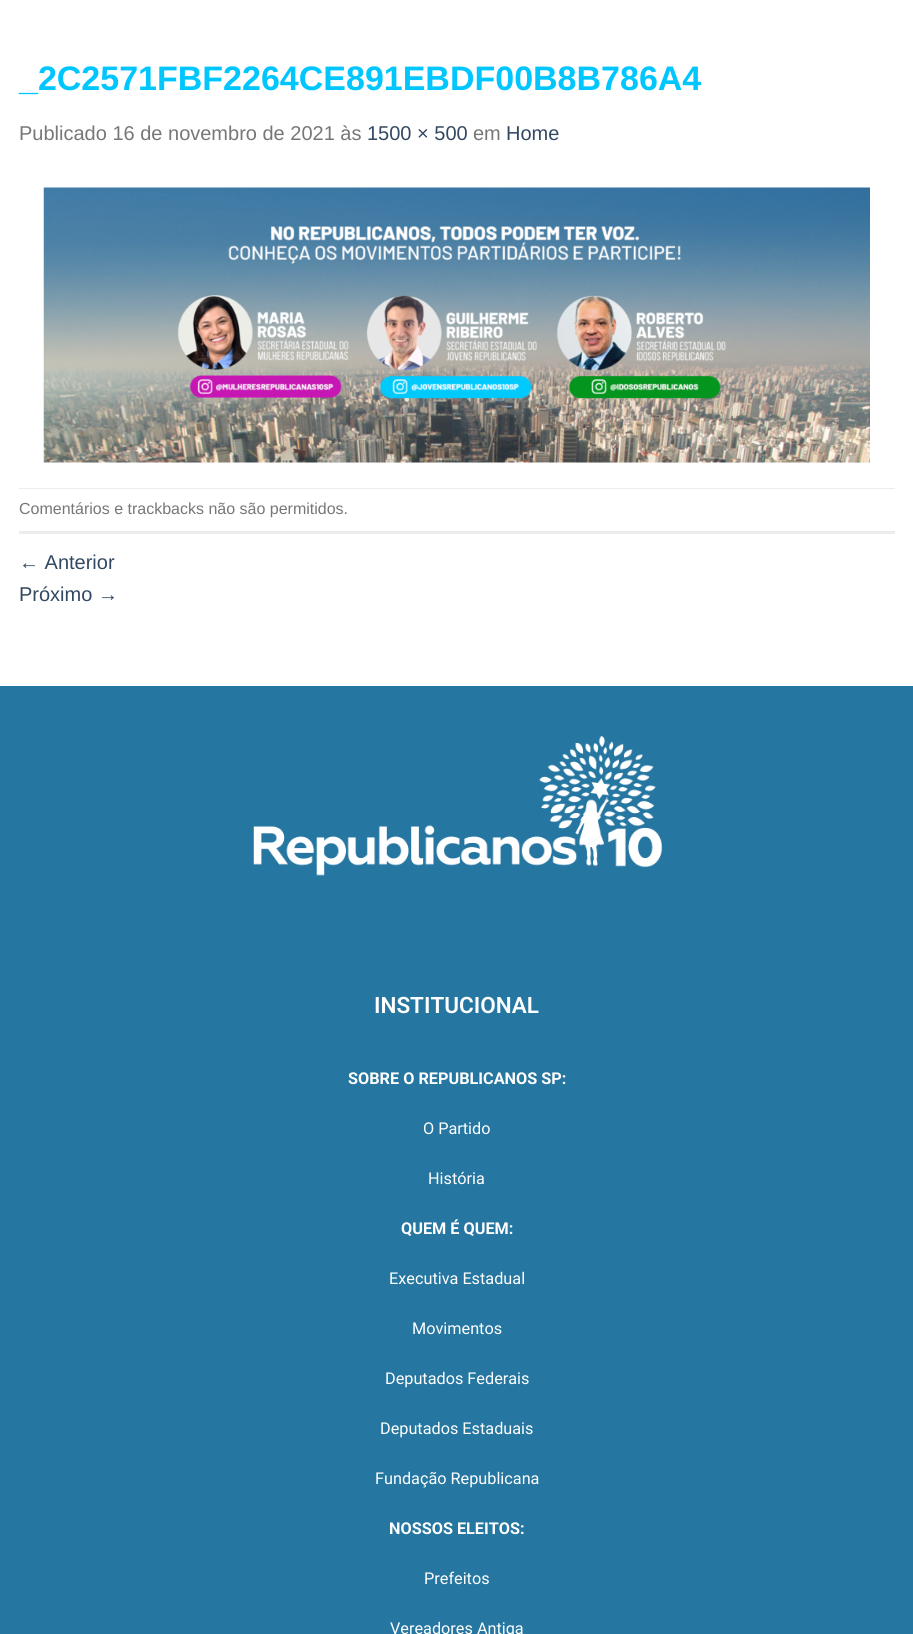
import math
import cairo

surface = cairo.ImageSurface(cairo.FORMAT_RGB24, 913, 1634)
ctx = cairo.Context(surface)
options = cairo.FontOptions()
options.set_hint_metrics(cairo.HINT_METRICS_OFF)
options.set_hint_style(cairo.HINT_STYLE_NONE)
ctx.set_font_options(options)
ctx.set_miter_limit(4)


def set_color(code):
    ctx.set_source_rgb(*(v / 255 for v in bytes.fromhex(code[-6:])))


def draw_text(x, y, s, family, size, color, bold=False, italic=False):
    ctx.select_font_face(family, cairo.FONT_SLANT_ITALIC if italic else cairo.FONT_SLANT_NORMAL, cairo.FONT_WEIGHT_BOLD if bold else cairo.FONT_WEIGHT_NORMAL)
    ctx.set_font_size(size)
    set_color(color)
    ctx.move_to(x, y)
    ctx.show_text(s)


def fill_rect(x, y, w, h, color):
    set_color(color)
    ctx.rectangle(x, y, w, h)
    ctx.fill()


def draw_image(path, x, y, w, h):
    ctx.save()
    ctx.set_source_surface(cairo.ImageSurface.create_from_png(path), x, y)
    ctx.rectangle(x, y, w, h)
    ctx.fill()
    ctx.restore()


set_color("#ffffff")
ctx.paint()
draw_text(19, 90, "_2C2571FBF2264CE891EBDF00B8B786A4", "Liberation Sans", 34, "#00c6ff", bold=True)
draw_text(19, 140, "Publicado 16 de novembro de 2021 às", "Liberation Sans", 20, "#777777")
draw_text(367, 140, "1500 × 500", "Liberation Sans", 20, "#334862")
draw_text(473, 140, "em", "Liberation Sans", 20, "#777777")
draw_text(506, 140, "Home", "Liberation Sans", 20, "#334862")
draw_image("assets/img1.png", 43, 187, 827, 276)
fill_rect(19, 488, 876, 1, "#ececec")
fill_rect(19, 531, 876, 3, "#ececec")
draw_text(19, 514, "Comentários e trackbacks não são permitidos.", "Liberation Sans", 16, "#777777")
draw_text(19, 569, "← Anterior", "Liberation Sans", 20, "#334862")
draw_text(19, 601, "Próximo →", "Liberation Sans", 20, "#334862")
fill_rect(0, 686, 913, 948, "#2576a0")
draw_image("assets/img2.png", 253, 735, 410, 141)
draw_text(374, 1013, "INSTITUCIONAL", "Roboto SemiBold", 22.5, "#ffffff")
draw_text(348, 1084, "SOBRE O REPUBLICANOS SP:", "Roboto", 16.25, "#ffffff", bold=True)
draw_text(423, 1134, "O Partido", "Roboto", 16.25, "#ffffff")
draw_text(428, 1184, "História", "Roboto", 16.25, "#ffffff")
draw_text(401, 1234, "QUEM É QUEM:", "Roboto", 16.25, "#ffffff", bold=True)
draw_text(389, 1284, "Executiva Estadual", "Roboto", 16.25, "#ffffff")
draw_text(412, 1334, "Movimentos", "Roboto", 16.25, "#ffffff")
draw_text(385, 1384, "Deputados Federais", "Roboto", 16.25, "#ffffff")
draw_text(380, 1434, "Deputados Estaduais", "Roboto", 16.25, "#ffffff")
draw_text(375, 1484, "Fundação Republicana", "Roboto", 16.25, "#ffffff")
draw_text(389, 1534, "NOSSOS ELEITOS:", "Roboto", 16.25, "#ffffff", bold=True)
draw_text(424, 1584, "Prefeitos", "Roboto", 16.25, "#ffffff")
draw_text(390, 1634, "Vereadores Antiga", "Roboto", 16.25, "#ffffff")
surface.write_to_png("output.png")
